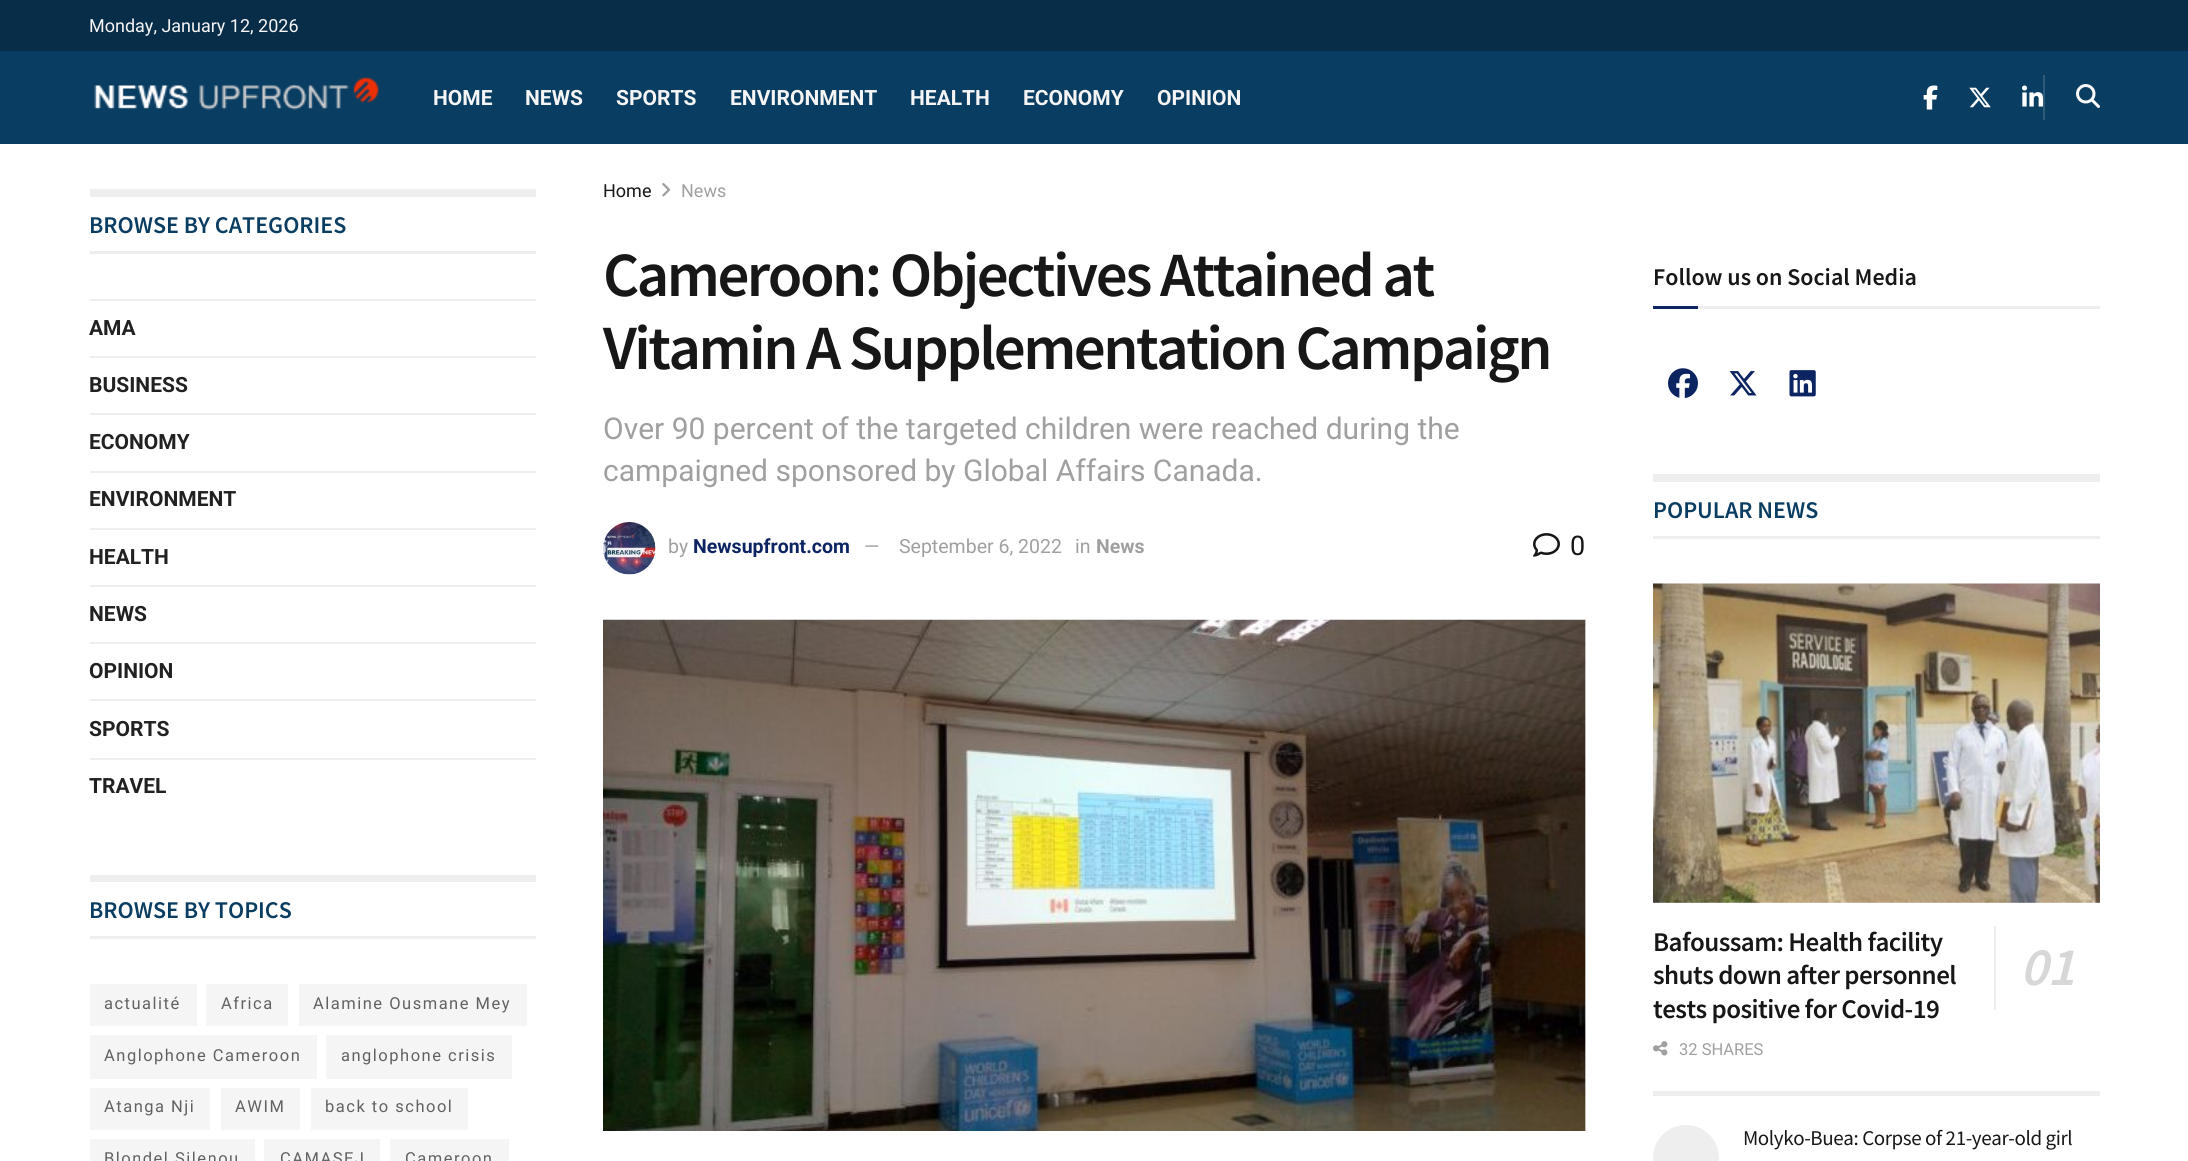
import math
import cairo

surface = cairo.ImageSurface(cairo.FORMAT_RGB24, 2188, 1161)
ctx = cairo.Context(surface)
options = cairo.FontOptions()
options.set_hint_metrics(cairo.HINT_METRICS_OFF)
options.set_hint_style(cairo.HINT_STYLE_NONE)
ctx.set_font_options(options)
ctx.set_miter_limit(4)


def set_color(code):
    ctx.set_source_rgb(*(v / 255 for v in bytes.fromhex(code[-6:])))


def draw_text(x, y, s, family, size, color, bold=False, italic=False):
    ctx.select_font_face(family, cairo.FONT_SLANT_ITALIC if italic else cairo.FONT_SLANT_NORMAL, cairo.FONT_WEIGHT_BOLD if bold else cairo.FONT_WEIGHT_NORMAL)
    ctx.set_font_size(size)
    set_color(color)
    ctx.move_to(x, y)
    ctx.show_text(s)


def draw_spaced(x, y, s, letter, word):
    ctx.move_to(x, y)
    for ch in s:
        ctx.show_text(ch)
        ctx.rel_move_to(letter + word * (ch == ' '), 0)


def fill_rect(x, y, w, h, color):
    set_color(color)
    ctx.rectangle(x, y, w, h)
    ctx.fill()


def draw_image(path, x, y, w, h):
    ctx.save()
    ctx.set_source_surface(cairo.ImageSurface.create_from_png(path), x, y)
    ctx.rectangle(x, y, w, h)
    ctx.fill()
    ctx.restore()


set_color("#ffffff")
ctx.paint()
fill_rect(0, 0, 2188, 51, "#082d48")
draw_text(89, 32, "Monday, January 12, 2026", "Roboto", 18, "#f5f5f5")
fill_rect(0, 51, 2188, 93, "#0a3d62")
draw_image("assets/img1.png", 94, 77, 285, 33)
draw_text(433, 105, "HOME", "Roboto", 21, "#f5f5f5", bold=True)
draw_text(525, 105, "NEWS", "Roboto", 21, "#f5f5f5", bold=True)
draw_text(616, 105, "SPORTS", "Roboto", 21, "#f5f5f5", bold=True)
draw_text(730, 105, "ENVIRONMENT", "Roboto", 21, "#f5f5f5", bold=True)
draw_text(910, 105, "HEALTH", "Roboto", 21, "#f5f5f5", bold=True)
draw_text(1023, 105, "ECONOMY", "Roboto", 21, "#f5f5f5", bold=True)
draw_text(1157, 105, "OPINION", "Roboto", 21, "#f5f5f5", bold=True)
draw_image("assets/img2.png", 1923, 85, 15, 25)
draw_image("assets/img3.png", 1969, 87, 22, 21)
draw_image("assets/img4.png", 2022, 85, 21, 22)
fill_rect(2043, 75, 2, 45, "#2f5a7a")
draw_image("assets/img5.png", 2076, 84, 24, 24)
fill_rect(90, 189, 446, 8, "#eeeeee")
fill_rect(90, 251, 446, 3, "#eeeeee")
draw_text(89, 233, "BROWSE BY CATEGORIES", "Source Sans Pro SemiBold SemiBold", 24, "#0a3d61")
fill_rect(90, 299, 446, 2, "#eeeeee")
draw_text(89, 335, "AMA", "Roboto", 21, "#212121", bold=True)
fill_rect(90, 356, 446, 2, "#eeeeee")
draw_text(89, 392, "BUSINESS", "Roboto", 21, "#212121", bold=True)
fill_rect(90, 413, 446, 2, "#eeeeee")
draw_text(89, 449, "ECONOMY", "Roboto", 21, "#212121", bold=True)
fill_rect(90, 471, 446, 2, "#eeeeee")
draw_text(89, 506, "ENVIRONMENT", "Roboto", 21, "#212121", bold=True)
fill_rect(90, 528, 446, 2, "#eeeeee")
draw_text(89, 564, "HEALTH", "Roboto", 21, "#212121", bold=True)
fill_rect(90, 585, 446, 2, "#eeeeee")
draw_text(89, 621, "NEWS", "Roboto", 21, "#212121", bold=True)
fill_rect(90, 642, 446, 2, "#eeeeee")
draw_text(89, 678, "OPINION", "Roboto", 21, "#212121", bold=True)
fill_rect(90, 699, 446, 2, "#eeeeee")
draw_text(89, 736, "SPORTS", "Roboto", 21, "#212121", bold=True)
fill_rect(90, 758, 446, 2, "#eeeeee")
draw_text(89, 793, "TRAVEL", "Roboto", 21, "#212121", bold=True)
fill_rect(90, 875, 446, 7, "#eeeeee")
fill_rect(90, 936, 446, 3, "#eeeeee")
draw_text(89, 918, "BROWSE BY TOPICS", "Source Sans Pro SemiBold SemiBold", 24, "#0a3d61")
fill_rect(90, 984, 107, 42, "#f5f5f5")
ctx.select_font_face("Roboto")
ctx.set_font_size(16.5)
set_color("#616161")
draw_spaced(104, 1009, "actualité", 1.5, 0)
fill_rect(206, 984, 82, 42, "#f5f5f5")
set_color("#616161")
draw_spaced(221, 1009, "Africa", 1.5, 0)
fill_rect(299, 984, 228, 42, "#f5f5f5")
set_color("#616161")
draw_spaced(313, 1009, "Alamine Ousmane Mey", 1.5, 0)
fill_rect(90, 1035, 227, 44, "#f5f5f5")
set_color("#616161")
draw_spaced(104, 1061, "Anglophone Cameroon", 1.5, 0)
fill_rect(326, 1035, 186, 44, "#f5f5f5")
set_color("#616161")
draw_spaced(341, 1061, "anglophone crisis", 1.5, 0)
fill_rect(90, 1088, 120, 42, "#f5f5f5")
set_color("#616161")
draw_spaced(104, 1112, "Atanga Nji", 1.5, 0)
fill_rect(221, 1088, 79, 42, "#f5f5f5")
set_color("#616161")
draw_spaced(235, 1112, "AWIM", 1.5, 0)
fill_rect(311, 1088, 157, 42, "#f5f5f5")
set_color("#616161")
draw_spaced(325, 1112, "back to school", 1.5, 0)
fill_rect(90, 1139, 165, 22, "#f5f5f5")
set_color("#616161")
draw_spaced(104, 1164, "Blondel Silenou", 1.5, 0)
fill_rect(264, 1139, 116, 22, "#f5f5f5")
set_color("#616161")
draw_spaced(280, 1164, "CAMASEJ", 1.5, 0)
fill_rect(390, 1139, 119, 22, "#f5f5f5")
set_color("#616161")
draw_spaced(405, 1164, "Cameroon", 1.5, 0)
draw_text(603, 197, "Home", "Roboto", 18, "#171717")
draw_image("assets/img6.png", 662, 183, 9, 14)
draw_text(681, 197, "News", "Roboto", 18, "#a0a0a0")
ctx.select_font_face("Source Sans Pro SemiBold SemiBold")
ctx.set_font_size(63)
set_color("#171717")
draw_spaced(603, 296, "Cameroon: Objectives Attained at", -2.5, 0)
draw_spaced(603, 369, "Vitamin A Supplementation Campaign", -2.5, 0)
draw_text(603, 439, "Over 90 percent of the targeted children were reached during the", "Roboto", 30, "#a0a0a0")
draw_text(603, 481, "campaigned sponsored by Global Affairs Canada.", "Roboto", 30, "#a0a0a0")
draw_image("assets/img7.png", 603, 522, 53, 53)
draw_text(668, 553, "by", "Roboto", 19.5, "#a0a0a0")
draw_text(693, 553, "Newsupfront.com", "Roboto", 19.5, "#0c2461", bold=True)
draw_text(864, 553, "—", "Roboto", 19.5, "#a0a0a0")
draw_text(899, 553, "September 6, 2022", "Roboto", 19.5, "#a0a0a0")
draw_text(1075, 553, "in", "Roboto", 19.5, "#a0a0a0")
draw_text(1096, 553, "News", "Roboto", 19.5, "#a0a0a0", bold=True)
draw_image("assets/img8.png", 1533, 533, 27, 24)
draw_text(1570, 555, "0", "Roboto", 27, "#171717")
fill_rect(1585, 620, 1, 511, "#e8e8e8")
draw_image("assets/img9.png", 603, 619, 983, 512)
fill_rect(1698, 306, 402, 3, "#eeeeee")
draw_text(1653, 285, "Follow us on Social Media", "Source Sans Pro SemiBold SemiBold", 24, "#171717")
fill_rect(1653, 306, 45, 3, "#0c2461")
draw_image("assets/img10.png", 1668, 368, 30, 31)
draw_image("assets/img11.png", 1729, 371, 28, 25)
draw_image("assets/img12.png", 1789, 370, 27, 27)
fill_rect(1653, 474, 447, 8, "#eeeeee")
fill_rect(1653, 536, 447, 3, "#eeeeee")
draw_text(1653, 518, "POPULAR NEWS", "Source Sans Pro SemiBold SemiBold", 24, "#0a3d61")
fill_rect(1653, 1091, 447, 5, "#eeeeee")
fill_rect(1653, 583, 447, 1, "#fbfbfb")
draw_image("assets/img13.png", 1653, 583, 447, 320)
ctx.set_font_size(27)
set_color("#171717")
draw_spaced(1653, 951, "Bafoussam: Health facility", -0.55, 0)
draw_spaced(1653, 984, "shuts down after personnel", -0.55, 0)
fill_rect(1994, 926, 2, 84, "#eeeeee")
ctx.select_font_face("Source Sans Pro SemiBold SemiBold", cairo.FONT_SLANT_ITALIC)
ctx.set_font_size(54)
set_color("#d7d7d7")
draw_spaced(2020, 985, "01", -0.55, 0)
ctx.select_font_face("Source Sans Pro SemiBold SemiBold")
ctx.set_font_size(27)
set_color("#171717")
draw_spaced(1653, 1018, "tests positive for Covid-19", -0.55, 0)
draw_image("assets/img14.png", 1653, 1041, 15, 15)
draw_text(1679, 1055, "32 SHARES", "Roboto", 16.5, "#a0a0a0")
set_color("#eeeeee")
ctx.new_path()
ctx.arc(1686, 1158, 33, 0, 2 * math.pi)
ctx.fill()
ctx.select_font_face("Source Sans Pro")
ctx.set_font_size(21)
set_color("#171717")
draw_spaced(1743, 1145, "Molyko-Buea: Corpse of 21-year-old girl", -0.4, 0)
surface.write_to_png("output.png")
